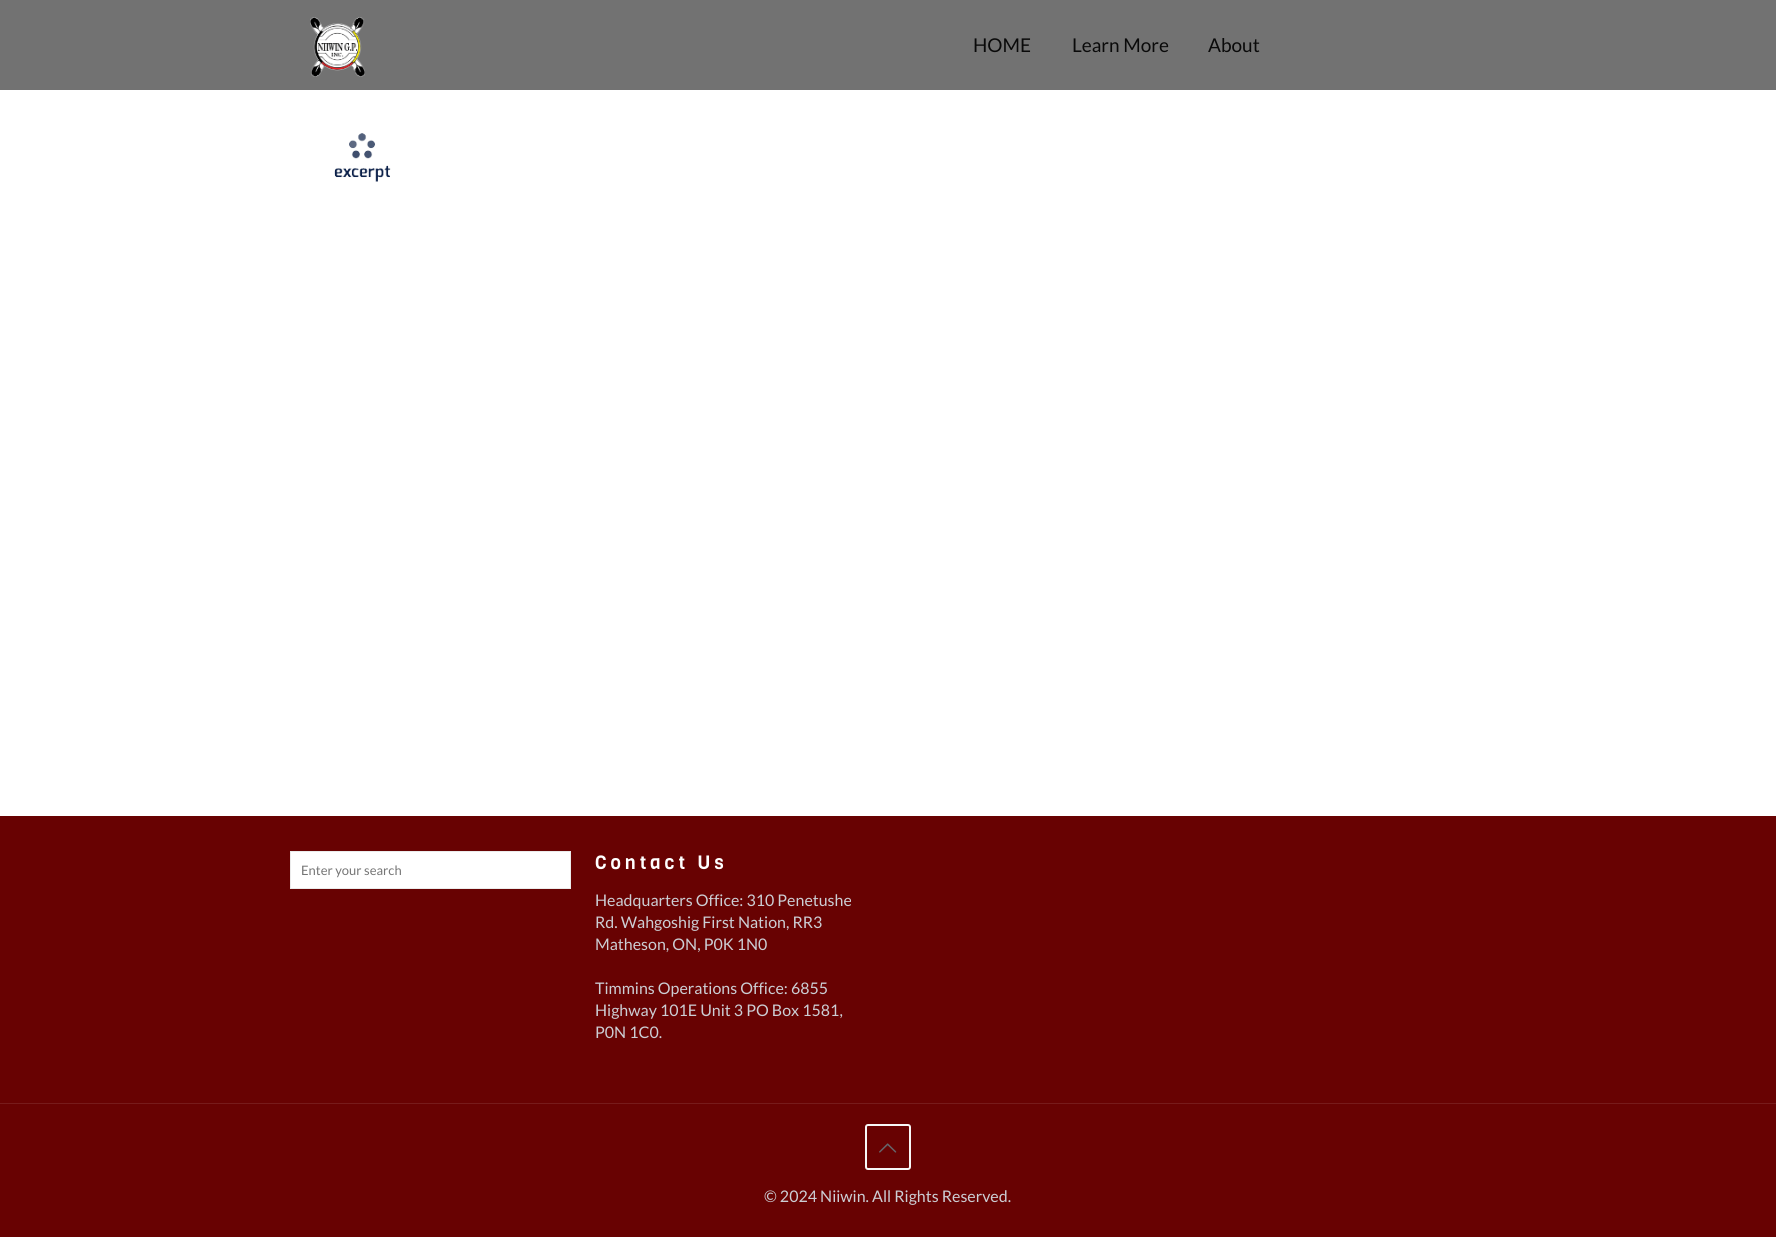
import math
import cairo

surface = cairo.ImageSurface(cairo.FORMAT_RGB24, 1776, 1237)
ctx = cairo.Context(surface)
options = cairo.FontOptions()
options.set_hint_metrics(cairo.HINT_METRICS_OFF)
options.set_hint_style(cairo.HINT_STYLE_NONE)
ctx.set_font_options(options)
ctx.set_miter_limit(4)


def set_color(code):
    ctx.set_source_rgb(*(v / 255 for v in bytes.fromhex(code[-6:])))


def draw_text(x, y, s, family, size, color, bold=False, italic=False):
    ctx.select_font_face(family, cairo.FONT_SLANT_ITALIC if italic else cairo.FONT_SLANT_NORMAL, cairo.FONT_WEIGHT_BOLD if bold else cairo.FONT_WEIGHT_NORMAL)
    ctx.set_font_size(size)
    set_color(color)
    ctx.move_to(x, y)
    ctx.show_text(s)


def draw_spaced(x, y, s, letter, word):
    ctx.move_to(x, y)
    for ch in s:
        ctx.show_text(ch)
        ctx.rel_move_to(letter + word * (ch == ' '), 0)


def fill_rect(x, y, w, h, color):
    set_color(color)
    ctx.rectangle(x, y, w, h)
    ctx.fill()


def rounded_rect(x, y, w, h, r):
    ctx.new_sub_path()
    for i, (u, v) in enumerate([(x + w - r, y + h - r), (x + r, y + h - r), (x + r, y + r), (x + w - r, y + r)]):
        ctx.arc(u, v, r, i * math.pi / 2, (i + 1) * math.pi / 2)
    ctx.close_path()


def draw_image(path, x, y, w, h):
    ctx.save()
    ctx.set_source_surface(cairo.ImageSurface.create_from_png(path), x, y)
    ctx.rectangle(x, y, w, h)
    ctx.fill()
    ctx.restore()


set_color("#ffffff")
ctx.paint()
fill_rect(0, 0, 1776, 90, "#727272")
draw_image("assets/img1.png", 310, 17, 55, 60)
draw_text(973, 52, "HOME", "Lato", 19, "#0a0a0a")
draw_text(1072, 52, "Learn More", "Lato", 19, "#0a0a0a")
draw_text(1208, 52, "About", "Lato", 19, "#0a0a0a")
draw_image("assets/img2.png", 334, 133, 57, 49)
fill_rect(0, 816, 1776, 421, "#680202")
set_color("#ffffff")
ctx.rectangle(290.5, 851.5, 280, 37)
ctx.fill_preserve()
set_color("#ebebeb")
ctx.set_line_width(1)
ctx.stroke()
draw_text(301, 875, "Enter your search", "Lato", 13, "#757575")
ctx.select_font_face("Viga")
ctx.set_font_size(19)
set_color("#ffffff")
draw_spaced(595, 869, "Contact Us", 4, 0)
draw_text(595, 906, "Headquarters Office: 310 Penetushe", "Lato", 16, "#ccced4")
draw_text(595, 928, "Rd. Wahgoshig First Nation, RR3", "Lato", 16, "#ccced4")
draw_text(595, 950, "Matheson, ON, P0K 1N0", "Lato", 16, "#ccced4")
draw_text(595, 994, "Timmins Operations Office: 6855", "Lato", 16, "#ccced4")
draw_text(595, 1016, "Highway 101E Unit 3 PO Box 1581,", "Lato", 16, "#ccced4")
draw_text(595, 1038, "P0N 1C0.", "Lato", 16, "#ccced4")
fill_rect(0, 1103, 1776, 1, "#771b1b")
rounded_rect(866, 1125, 44, 44, 2)
set_color("#f7f7f7")
ctx.set_line_width(2)
ctx.stroke()
draw_image("assets/img3.png", 879, 1143, 18, 10)
draw_text(764, 1202, "© 2024 Niiwin. All Rights Reserved.", "Lato", 16, "#ccced4")
surface.write_to_png("output.png")
